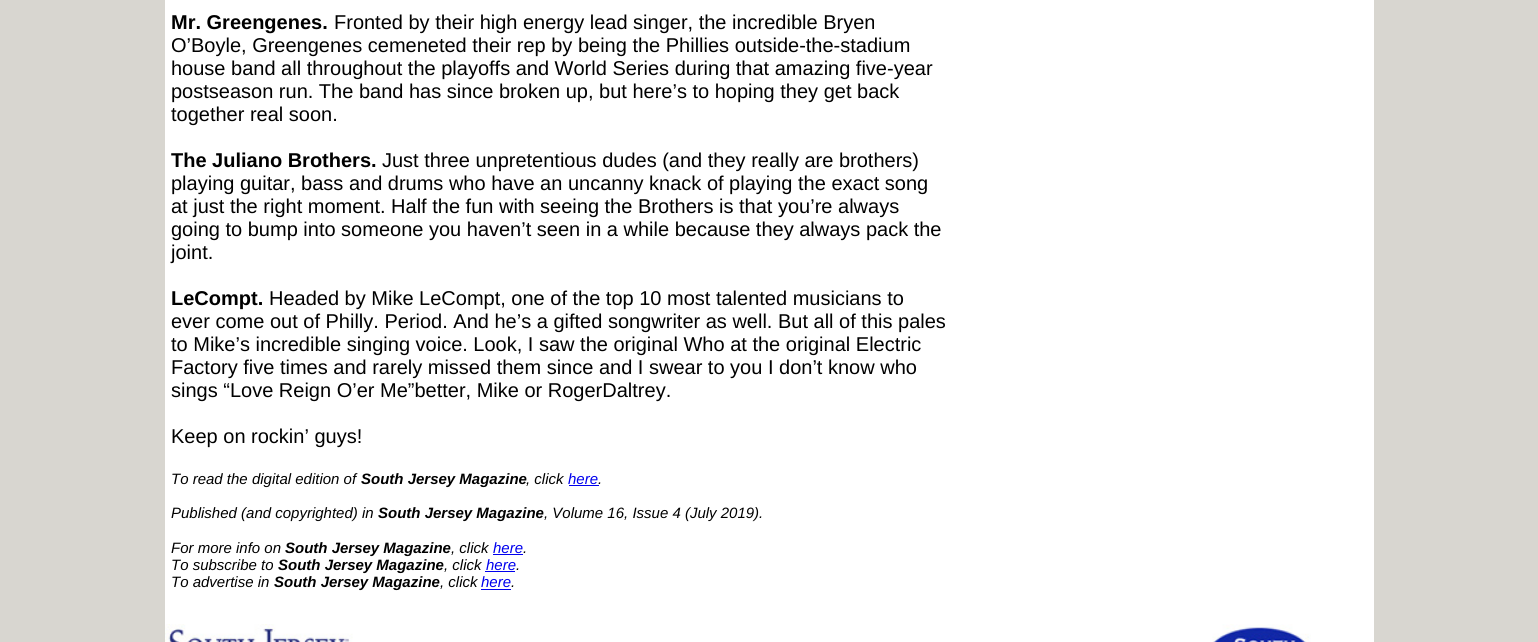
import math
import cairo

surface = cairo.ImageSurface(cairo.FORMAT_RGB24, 1538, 642)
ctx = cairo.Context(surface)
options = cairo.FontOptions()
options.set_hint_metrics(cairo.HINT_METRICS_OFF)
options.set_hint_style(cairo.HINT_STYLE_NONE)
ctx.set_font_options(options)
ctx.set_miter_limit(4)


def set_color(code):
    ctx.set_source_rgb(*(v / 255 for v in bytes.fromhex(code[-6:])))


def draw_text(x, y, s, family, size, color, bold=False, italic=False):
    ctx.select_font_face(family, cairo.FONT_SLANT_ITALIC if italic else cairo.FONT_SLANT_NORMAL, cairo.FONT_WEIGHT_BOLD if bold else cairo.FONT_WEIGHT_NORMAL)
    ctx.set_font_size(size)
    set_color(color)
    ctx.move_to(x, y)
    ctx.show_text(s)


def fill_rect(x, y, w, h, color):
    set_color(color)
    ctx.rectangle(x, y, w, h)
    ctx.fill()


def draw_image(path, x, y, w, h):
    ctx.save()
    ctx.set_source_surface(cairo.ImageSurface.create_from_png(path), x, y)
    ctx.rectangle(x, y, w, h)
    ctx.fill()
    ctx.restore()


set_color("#d8d6d0")
ctx.paint()
fill_rect(165, 0, 1209, 642, "#ffffff")
draw_text(171, 29, "Mr. Greengenes.", "Liberation Sans", 20, "#000000", bold=True)
draw_text(334, 29, "Fronted by their high energy lead singer, the incredible Bryen", "Liberation Sans", 20, "#000000")
draw_text(171, 52, "O’Boyle, Greengenes cemeneted their rep by being the Phillies outside-the-stadium", "Liberation Sans", 20, "#000000")
draw_text(171, 75, "house band all throughout the playoffs and World Series during that amazing five-year", "Liberation Sans", 20, "#000000")
draw_text(171, 98, "postseason run. The band has since broken up, but here’s to hoping they get back", "Liberation Sans", 20, "#000000")
draw_text(171, 121, "together real soon.", "Liberation Sans", 20, "#000000")
draw_text(171, 167, "The Juliano Brothers.", "Liberation Sans", 20, "#000000", bold=True)
draw_text(382, 167, "Just three unpretentious dudes (and they really are brothers)", "Liberation Sans", 20, "#000000")
draw_text(171, 190, "playing guitar, bass and drums who have an uncanny knack of playing the exact song", "Liberation Sans", 20, "#000000")
draw_text(171, 213, "at just the right moment. Half the fun with seeing the Brothers is that you’re always", "Liberation Sans", 20, "#000000")
draw_text(171, 236, "going to bump into someone you haven’t seen in a while because they always pack the", "Liberation Sans", 20, "#000000")
draw_text(171, 259, "joint.", "Liberation Sans", 20, "#000000")
draw_text(171, 305, "LeCompt.", "Liberation Sans", 20, "#000000", bold=True)
draw_text(269, 305, "Headed by Mike LeCompt, one of the top 10 most talented musicians to", "Liberation Sans", 20, "#000000")
draw_text(171, 328, "ever come out of Philly. Period. And he’s a gifted songwriter as well. But all of this pales", "Liberation Sans", 20, "#000000")
draw_text(171, 351, "to Mike’s incredible singing voice. Look, I saw the original Who at the original Electric", "Liberation Sans", 20, "#000000")
draw_text(171, 374, "Factory five times and rarely missed them since and I swear to you I don’t know who", "Liberation Sans", 20, "#000000")
draw_text(171, 397, "sings “Love Reign O’er Me”better, Mike or RogerDaltrey.", "Liberation Sans", 20, "#000000")
draw_text(171, 443, "Keep on rockin’ guys!", "Liberation Sans", 20, "#000000")
draw_text(171, 484, "To read the digital edition of", "Liberation Sans", 15, "#000000", italic=True)
draw_text(361, 484, "South Jersey Magazine", "Liberation Sans", 15, "#000000", bold=True, italic=True)
draw_text(526, 484, ", click", "Liberation Sans", 15, "#000000", italic=True)
draw_text(568, 484, "here", "Liberation Sans", 15, "#0000ee", italic=True)
draw_text(598, 484, ".", "Liberation Sans", 15, "#000000", italic=True)
fill_rect(569, 485, 30, 1, "#0000ee")
draw_text(171, 518, "Published (and copyrighted) in", "Liberation Sans", 15, "#000000", italic=True)
draw_text(378, 518, "South Jersey Magazine", "Liberation Sans", 15, "#000000", bold=True, italic=True)
draw_text(544, 518, ", Volume 16, Issue 4 (July 2019).", "Liberation Sans", 15, "#000000", italic=True)
draw_text(171, 553, "For more info on", "Liberation Sans", 15, "#000000", italic=True)
draw_text(285, 553, "South Jersey Magazine", "Liberation Sans", 15, "#000000", bold=True, italic=True)
draw_text(451, 553, ", click", "Liberation Sans", 15, "#000000", italic=True)
draw_text(493, 553, "here", "Liberation Sans", 15, "#0000ee", italic=True)
draw_text(523, 553, ".", "Liberation Sans", 15, "#000000", italic=True)
fill_rect(493, 554, 30, 1, "#0000ee")
draw_text(171, 570, "To subscribe to", "Liberation Sans", 15, "#000000", italic=True)
draw_text(278, 570, "South Jersey Magazine", "Liberation Sans", 15, "#000000", bold=True, italic=True)
draw_text(444, 570, ", click", "Liberation Sans", 15, "#000000", italic=True)
draw_text(486, 570, "here", "Liberation Sans", 15, "#0000ee", italic=True)
draw_text(516, 570, ".", "Liberation Sans", 15, "#000000", italic=True)
fill_rect(485, 571, 30, 1, "#0000ee")
draw_text(171, 587, "To advertise in", "Liberation Sans", 15, "#000000", italic=True)
draw_text(274, 587, "South Jersey Magazine", "Liberation Sans", 15, "#000000", bold=True, italic=True)
draw_text(440, 587, ", click", "Liberation Sans", 15, "#000000", italic=True)
draw_text(481, 587, "here", "Liberation Sans", 15, "#0000ee", italic=True)
draw_text(511, 587, ".", "Liberation Sans", 15, "#000000", italic=True)
fill_rect(481, 589, 30, 1, "#0000ee")
draw_image("assets/img1.png", 165, 624, 188, 18)
draw_image("assets/img2.png", 1212, 624, 99, 18)
surface.write_to_png("output.png")
